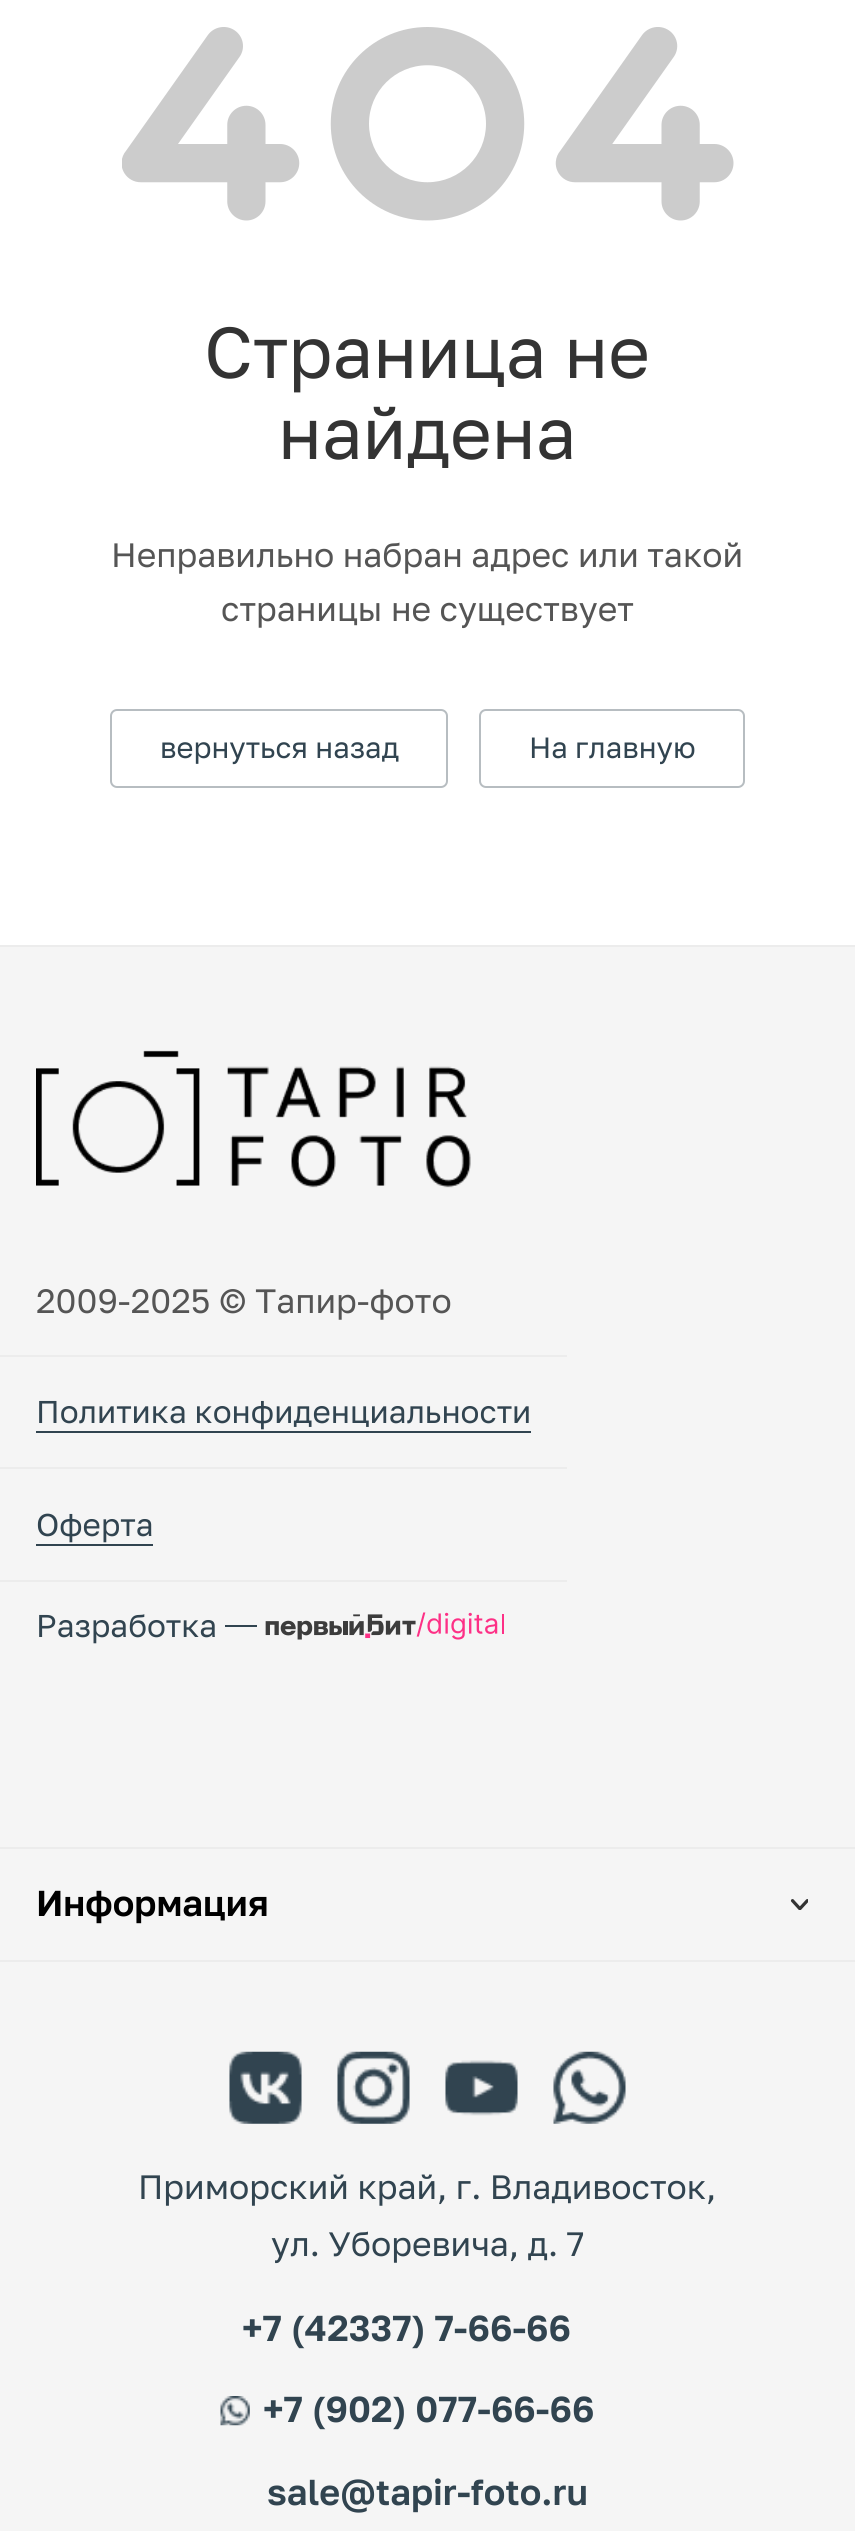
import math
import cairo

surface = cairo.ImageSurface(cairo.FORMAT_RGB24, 855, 2531)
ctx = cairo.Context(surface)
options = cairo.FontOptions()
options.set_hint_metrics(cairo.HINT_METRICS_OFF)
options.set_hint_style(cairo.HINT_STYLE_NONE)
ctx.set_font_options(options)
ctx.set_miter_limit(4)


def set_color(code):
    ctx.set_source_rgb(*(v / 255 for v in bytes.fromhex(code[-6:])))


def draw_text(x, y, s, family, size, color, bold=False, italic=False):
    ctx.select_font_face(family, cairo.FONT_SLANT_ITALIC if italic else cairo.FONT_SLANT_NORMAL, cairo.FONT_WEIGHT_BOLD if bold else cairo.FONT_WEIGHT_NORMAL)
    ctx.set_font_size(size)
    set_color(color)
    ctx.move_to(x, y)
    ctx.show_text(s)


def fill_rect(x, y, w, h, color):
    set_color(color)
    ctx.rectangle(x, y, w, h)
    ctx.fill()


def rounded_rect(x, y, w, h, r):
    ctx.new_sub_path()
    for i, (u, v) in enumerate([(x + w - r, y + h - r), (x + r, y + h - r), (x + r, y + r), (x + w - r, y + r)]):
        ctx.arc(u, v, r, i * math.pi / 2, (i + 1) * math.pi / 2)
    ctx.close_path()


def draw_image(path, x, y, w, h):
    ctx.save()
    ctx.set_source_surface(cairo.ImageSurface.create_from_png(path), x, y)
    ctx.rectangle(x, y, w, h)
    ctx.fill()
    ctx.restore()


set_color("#ffffff")
ctx.paint()
draw_image("assets/img1.png", 122, 27, 612, 194)
draw_text(204, 378, "Страница не", "Golos Text", 72, "#333333")
draw_text(278, 459, "найдена", "Golos Text", 72, "#333333")
draw_text(111, 567, "Неправильно набран адрес или такой", "Golos Text", 33.75, "#555555")
draw_text(221, 621, "страницы не существует", "Golos Text", 33.75, "#555555")
rounded_rect(111, 710, 336, 77, 6)
set_color("#b7bdc1")
ctx.stroke()
draw_text(160, 758, "вернуться назад", "Golos Text", 29.25, "#314450")
rounded_rect(480, 710, 264, 77, 6)
set_color("#b7bdc1")
ctx.stroke()
draw_text(529, 758, "На главную", "Golos Text", 29.25, "#314450")
fill_rect(0, 947, 855, 1584, "#f5f5f5")
fill_rect(0, 945, 855, 2, "#ececec")
draw_image("assets/img2.png", 36, 1050, 435, 138)
draw_text(36, 1313, "2009-2025 © Тапир-фото", "Golos Text", 33.75, "#555555")
fill_rect(0, 1355, 567, 2, "#ececec")
fill_rect(0, 1467, 567, 2, "#ececec")
draw_text(36, 1423, "Политика конфиденциальности", "Golos Text", 31.5, "#314450")
fill_rect(36, 1431, 495, 2, "#314450")
fill_rect(0, 1580, 567, 2, "#ececec")
draw_text(36, 1536, "Оферта", "Golos Text", 31.5, "#314450")
fill_rect(36, 1544, 117, 2, "#314450")
draw_text(36, 1637, "Разработка", "Golos Text", 31.5, "#314450")
fill_rect(225, 1625, 32, 2, "#314450")
draw_image("assets/img3.png", 265, 1612, 239, 28)
fill_rect(0, 1847, 855, 2, "#ececec")
fill_rect(0, 1960, 855, 2, "#ececec")
draw_text(36, 1916, "Информация", "Golos Text SemiBold", 36, "#000000")
draw_image("assets/img4.png", 790, 1899, 18, 11)
draw_image("assets/img5.png", 229, 2051, 73, 73)
draw_image("assets/img6.png", 337, 2051, 73, 73)
draw_image("assets/img7.png", 445, 2060, 73, 56)
draw_image("assets/img8.png", 553, 2051, 73, 73)
draw_text(138, 2199, "Приморский край, г. Владивосток,", "Golos Text", 33.75, "#314450")
draw_text(271, 2256, "ул. Уборевича, д. 7", "Golos Text", 33.75, "#314450")
draw_text(242, 2341, "+7 (42337) 7-66-66", "Golos Text SemiBold", 36, "#314450")
draw_image("assets/img9.png", 220, 2396, 30, 30)
draw_text(263, 2422, "+7 (902) 077-66-66", "Golos Text SemiBold", 36, "#314450")
draw_text(267, 2505, "sale@tapir-foto.ru", "Golos Text SemiBold", 36, "#314450")
surface.write_to_png("output.png")
